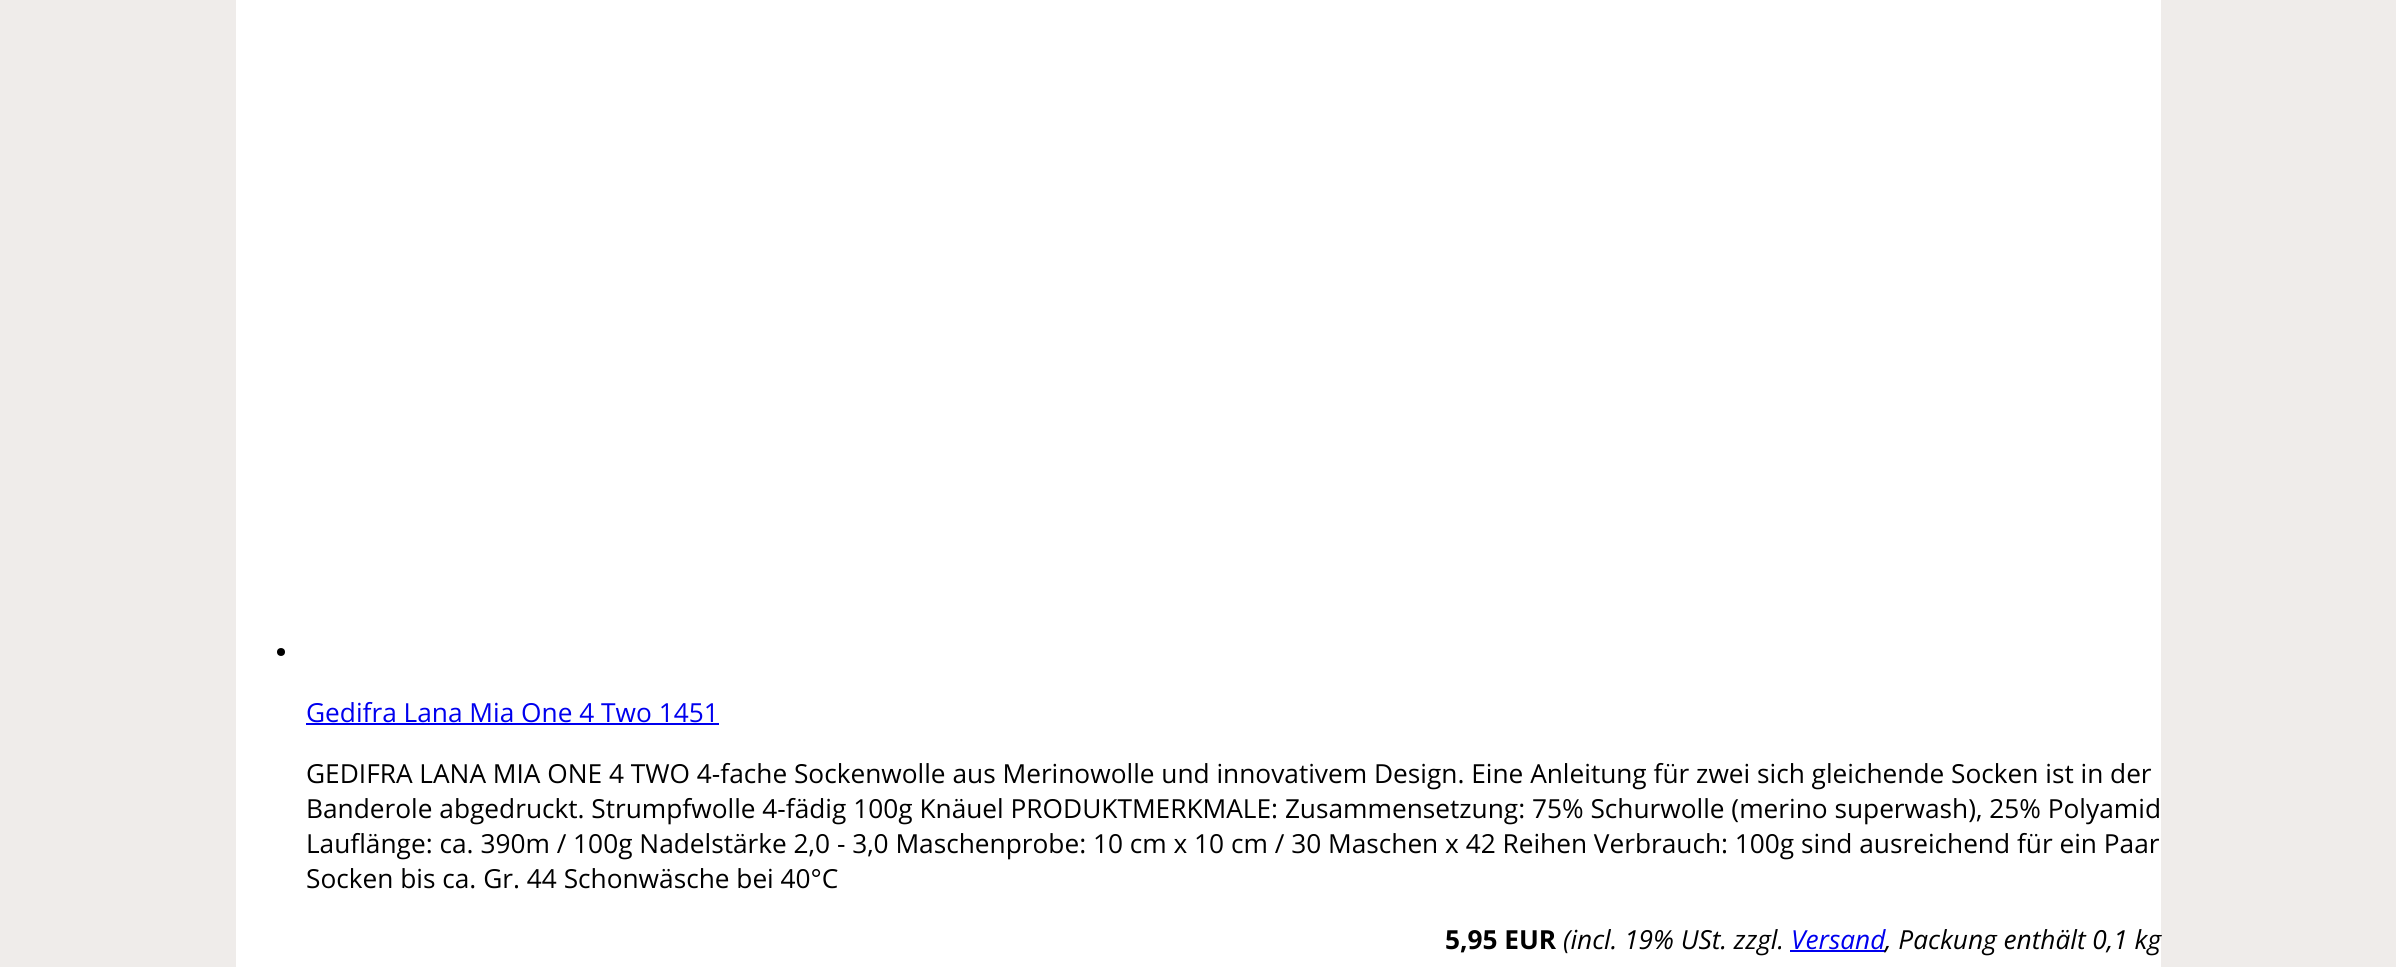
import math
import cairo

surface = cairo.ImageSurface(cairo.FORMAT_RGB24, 2396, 967)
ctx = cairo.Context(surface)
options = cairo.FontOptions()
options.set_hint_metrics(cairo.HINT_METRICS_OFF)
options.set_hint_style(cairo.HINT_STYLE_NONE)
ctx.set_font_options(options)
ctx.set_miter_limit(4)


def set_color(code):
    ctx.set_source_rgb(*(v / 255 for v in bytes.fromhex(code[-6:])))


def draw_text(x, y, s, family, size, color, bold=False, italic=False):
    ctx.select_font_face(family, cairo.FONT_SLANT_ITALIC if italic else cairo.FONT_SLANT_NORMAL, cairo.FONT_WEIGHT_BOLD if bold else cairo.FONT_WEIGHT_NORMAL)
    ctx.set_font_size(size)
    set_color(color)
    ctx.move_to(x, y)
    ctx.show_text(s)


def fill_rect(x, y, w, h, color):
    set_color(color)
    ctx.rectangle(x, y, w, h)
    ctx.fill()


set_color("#efecea")
ctx.paint()
fill_rect(236, 0, 1925, 967, "#ffffff")
set_color("#000000")
ctx.arc(281, 652, 4, 0, 2 * math.pi)
ctx.fill()
draw_text(306, 722, "Gedifra Lana Mia One 4 Two 1451", "Open Sans", 26.25, "#0000ee")
fill_rect(306, 723, 413, 2, "#0000ee")
draw_text(306, 783, "GEDIFRA LANA MIA ONE 4 TWO 4-fache Sockenwolle aus Merinowolle und innovativem Design. Eine Anleitung für zwei sich gleichende Socken ist in der", "Open Sans", 26.25, "#000000")
draw_text(306, 818, "Banderole abgedruckt. Strumpfwolle 4-fädig 100g Knäuel PRODUKTMERKMALE: Zusammensetzung: 75% Schurwolle (merino superwash), 25% Polyamid", "Open Sans", 26.25, "#000000")
draw_text(306, 853, "Lauflänge: ca. 390m / 100g Nadelstärke 2,0 - 3,0 Maschenprobe: 10 cm x 10 cm / 30 Maschen x 42 Reihen Verbrauch: 100g sind ausreichend für ein Paar", "Open Sans", 26.25, "#000000")
draw_text(306, 888, "Socken bis ca. Gr. 44 Schonwäsche bei 40°C", "Open Sans", 26.25, "#000000")
draw_text(1445, 949, "5,95 EUR", "Open Sans", 26.25, "#000000", bold=True)
draw_text(1563, 949, "(incl. 19% USt. zzgl.", "Open Sans", 26.25, "#000000", italic=True)
draw_text(1791, 949, "Versand", "Open Sans", 26.25, "#0000ee", italic=True)
fill_rect(1790, 950, 95, 2, "#0000ee")
draw_text(1885, 949, ", Packung enthält 0,1 kg", "Open Sans", 26.25, "#000000", italic=True)
surface.write_to_png("output.png")
